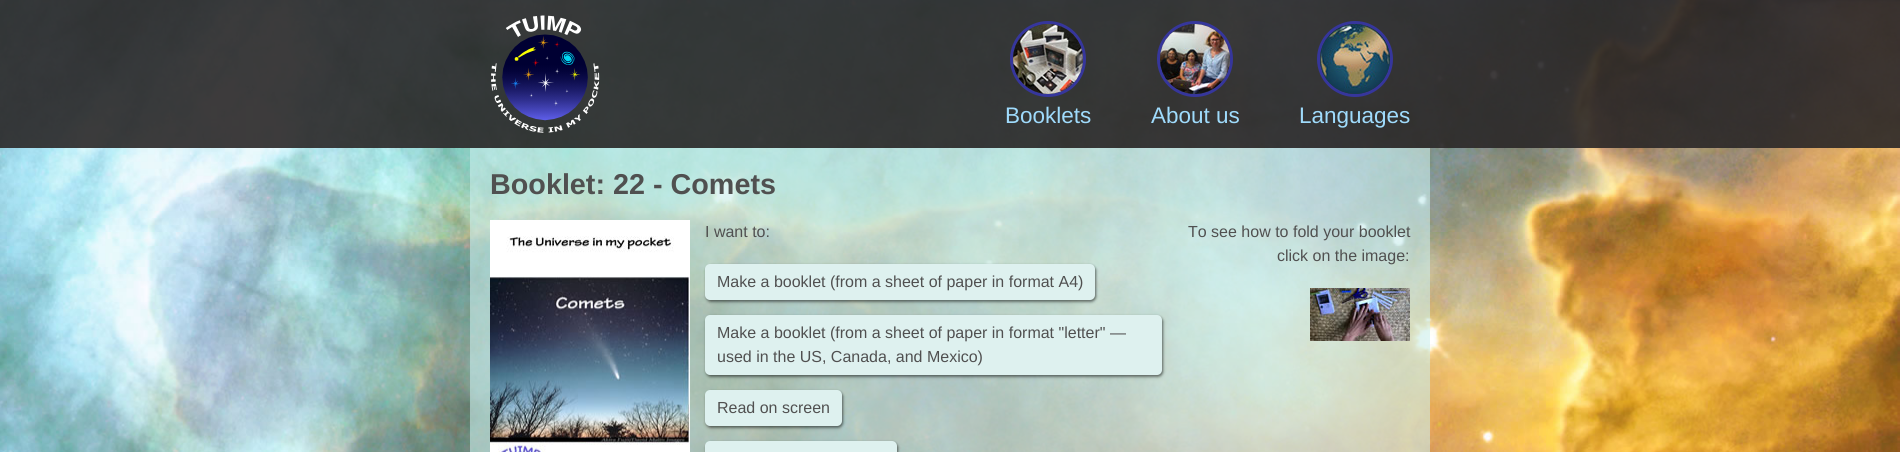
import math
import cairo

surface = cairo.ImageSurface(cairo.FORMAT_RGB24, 1900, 452)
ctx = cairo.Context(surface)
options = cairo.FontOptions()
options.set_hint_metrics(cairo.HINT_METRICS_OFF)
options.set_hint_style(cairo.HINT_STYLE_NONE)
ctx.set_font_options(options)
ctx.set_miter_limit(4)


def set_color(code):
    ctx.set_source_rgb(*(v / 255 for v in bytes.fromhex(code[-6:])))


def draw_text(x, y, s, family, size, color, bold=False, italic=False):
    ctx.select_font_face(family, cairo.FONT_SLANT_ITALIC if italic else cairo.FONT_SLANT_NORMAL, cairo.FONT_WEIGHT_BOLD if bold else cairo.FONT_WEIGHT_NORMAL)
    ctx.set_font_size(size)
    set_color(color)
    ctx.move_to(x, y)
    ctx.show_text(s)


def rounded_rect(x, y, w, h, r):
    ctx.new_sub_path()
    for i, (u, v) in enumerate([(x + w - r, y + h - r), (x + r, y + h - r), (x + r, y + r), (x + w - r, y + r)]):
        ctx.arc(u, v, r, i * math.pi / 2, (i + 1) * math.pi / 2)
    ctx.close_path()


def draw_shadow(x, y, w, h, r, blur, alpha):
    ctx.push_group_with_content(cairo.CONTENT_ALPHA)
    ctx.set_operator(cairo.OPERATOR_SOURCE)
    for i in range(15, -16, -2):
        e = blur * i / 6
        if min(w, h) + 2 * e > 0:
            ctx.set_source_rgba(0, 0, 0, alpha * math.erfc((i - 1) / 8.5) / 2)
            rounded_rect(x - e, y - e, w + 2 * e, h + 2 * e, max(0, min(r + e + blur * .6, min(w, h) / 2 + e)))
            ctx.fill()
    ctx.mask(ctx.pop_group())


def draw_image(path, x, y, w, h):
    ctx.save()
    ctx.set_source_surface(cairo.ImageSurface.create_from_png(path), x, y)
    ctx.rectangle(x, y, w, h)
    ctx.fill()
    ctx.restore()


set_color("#ffffff")
ctx.paint()
draw_image("assets/img1.png", 0, 0, 1900, 452)
ctx.set_source_rgba(0.169, 0.153, 0.153, 0.9)
ctx.rectangle(0, 0, 1900, 148)
ctx.fill()
draw_image("assets/img2.png", 491, 15, 109, 118)
ctx.arc(1048, 59, 36.5, 0, 2 * math.pi)
set_color("#36369c")
ctx.set_line_width(3)
ctx.stroke()
draw_image("assets/img3.png", 1013, 24, 70, 70)
draw_text(1005, 123, "Booklets", "Liberation Sans", 22.5, "#9fdbfc")
ctx.new_path()
ctx.arc(1195, 59, 36.5, 0, 2 * math.pi)
set_color("#36369c")
ctx.stroke()
draw_image("assets/img4.png", 1160, 24, 70, 70)
draw_text(1151, 123, "About us", "Liberation Sans", 22.5, "#9fdbfc")
ctx.new_path()
ctx.arc(1355, 59, 36.5, 0, 2 * math.pi)
set_color("#36369c")
ctx.stroke()
draw_image("assets/img5.png", 1320, 24, 70, 70)
draw_text(1299, 123, "Languages", "Liberation Sans", 22.5, "#9fdbfc")
ctx.set_source_rgba(0.796, 0.937, 0.925, 0.6)
ctx.rectangle(470, 148, 960, 304)
ctx.fill()
draw_text(490, 194, "Booklet: 22 - Comets", "Liberation Sans", 28.75, "#505050", bold=True)
draw_image("assets/img6.png", 490, 220, 200, 232)
draw_text(705, 237, "I want to:", "Liberation Sans", 16, "#505050")
set_color("#000000")
draw_shadow(706, 266, 390, 36, 5, 1.5, 0.41)
draw_shadow(706, 265, 390, 36, 5, 1, 0.2)
set_color("#def1ef")
rounded_rect(705, 264, 390, 36, 5)
ctx.fill()
draw_text(717, 287, "Make a booklet (from a sheet of paper in format A4)", "Liberation Sans", 16, "#505050")
set_color("#000000")
draw_shadow(706, 317, 457, 60, 5, 1.5, 0.41)
draw_shadow(706, 316, 457, 60, 5, 1, 0.2)
set_color("#def1ef")
rounded_rect(705, 315, 457, 60, 5)
ctx.fill()
draw_text(717, 338, "Make a booklet (from a sheet of paper in format \"letter\" —", "Liberation Sans", 16, "#505050")
draw_text(717, 362, "used in the US, Canada, and Mexico)", "Liberation Sans", 16, "#505050")
set_color("#000000")
draw_shadow(706, 392, 137, 36, 5, 1.5, 0.41)
draw_shadow(706, 391, 137, 36, 5, 1, 0.2)
set_color("#def1ef")
rounded_rect(705, 390, 137, 36, 5)
ctx.fill()
draw_text(717, 413, "Read on screen", "Liberation Sans", 16, "#505050")
set_color("#000000")
draw_shadow(706, 443, 192, 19, 5, 1.5, 0.41)
draw_shadow(706, 442, 192, 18, 5, 1, 0.2)
set_color("#def1ef")
rounded_rect(705, 441, 192, 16, 5)
ctx.fill()
draw_text(1188, 237, "To see how to fold your booklet", "Liberation Sans", 16, "#505050")
draw_text(1277, 261, "click on the image:", "Liberation Sans", 16, "#505050")
draw_image("assets/img7.png", 1310, 288, 100, 53)
surface.write_to_png("output.png")
